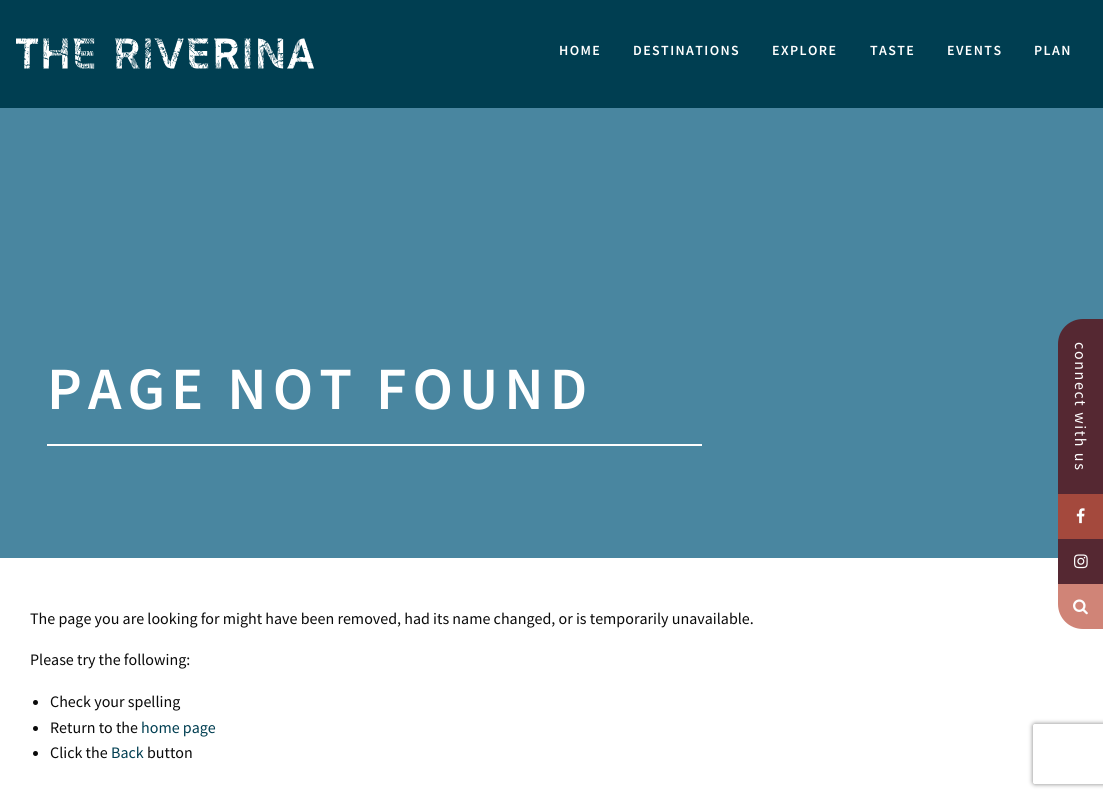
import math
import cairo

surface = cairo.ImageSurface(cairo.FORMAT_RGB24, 1103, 798)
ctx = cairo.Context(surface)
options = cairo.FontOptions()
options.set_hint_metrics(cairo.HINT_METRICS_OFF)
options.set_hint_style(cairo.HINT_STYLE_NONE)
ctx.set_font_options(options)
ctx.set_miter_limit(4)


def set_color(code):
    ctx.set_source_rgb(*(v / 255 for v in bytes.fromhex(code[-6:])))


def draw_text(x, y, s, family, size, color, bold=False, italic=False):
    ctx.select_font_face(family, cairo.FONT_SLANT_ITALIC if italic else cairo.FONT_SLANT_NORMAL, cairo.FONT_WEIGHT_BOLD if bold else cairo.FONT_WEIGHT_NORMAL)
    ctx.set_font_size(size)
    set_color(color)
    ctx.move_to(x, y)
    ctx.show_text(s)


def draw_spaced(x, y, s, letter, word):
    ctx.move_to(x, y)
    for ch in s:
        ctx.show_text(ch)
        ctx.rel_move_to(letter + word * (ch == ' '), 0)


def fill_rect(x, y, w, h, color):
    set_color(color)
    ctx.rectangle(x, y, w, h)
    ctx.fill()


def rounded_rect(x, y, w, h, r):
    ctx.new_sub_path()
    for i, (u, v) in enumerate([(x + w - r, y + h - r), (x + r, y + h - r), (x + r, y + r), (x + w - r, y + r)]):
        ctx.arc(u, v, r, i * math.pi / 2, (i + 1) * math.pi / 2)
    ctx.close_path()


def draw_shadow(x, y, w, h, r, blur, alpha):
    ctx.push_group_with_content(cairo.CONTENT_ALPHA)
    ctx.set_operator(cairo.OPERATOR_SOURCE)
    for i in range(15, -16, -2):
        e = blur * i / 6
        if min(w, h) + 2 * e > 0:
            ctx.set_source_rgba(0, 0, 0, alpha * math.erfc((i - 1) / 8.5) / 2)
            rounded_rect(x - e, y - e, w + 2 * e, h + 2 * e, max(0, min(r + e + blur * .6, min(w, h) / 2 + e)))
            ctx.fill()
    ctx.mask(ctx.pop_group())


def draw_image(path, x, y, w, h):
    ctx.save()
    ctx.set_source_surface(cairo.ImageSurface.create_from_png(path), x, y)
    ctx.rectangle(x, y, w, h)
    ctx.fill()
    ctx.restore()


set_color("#ffffff")
ctx.paint()
fill_rect(0, 0, 1103, 108, "#003e51")
draw_image("assets/img1.png", 16, 38, 298, 31)
ctx.select_font_face("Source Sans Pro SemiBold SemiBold")
ctx.set_font_size(14)
set_color("#ffffff")
draw_spaced(559, 55, "HOME", 1.4, 0)
draw_spaced(633, 55, "DESTINATIONS", 1.4, 0)
draw_spaced(772, 55, "EXPLORE", 1.4, 0)
draw_spaced(870, 55, "TASTE", 1.4, 0)
draw_spaced(947, 55, "EVENTS", 1.4, 0)
draw_spaced(1034, 55, "PLAN", 1.4, 0)
fill_rect(0, 108, 1103, 450, "#4986a0")
ctx.set_font_size(60)
set_color("#ffffff")
draw_spaced(47, 409, "PAGE NOT FOUND", 6, 0)
fill_rect(47, 444, 655, 2, "#fefefe")
ctx.save()
ctx.new_path()
ctx.move_to(1083, 319)
ctx.line_to(1103, 319)
ctx.line_to(1103, 629)
ctx.line_to(1083, 629)
ctx.curve_to(1069, 629, 1058, 618, 1058, 604)
ctx.line_to(1058, 344)
ctx.curve_to(1058, 330, 1069, 319, 1083, 319)
ctx.close_path()
ctx.clip()
fill_rect(1058, 319, 45, 175, "#552832")
ctx.restore()
ctx.select_font_face("Source Sans Pro")
ctx.set_font_size(16)
set_color("#ffffff")
ctx.save()
ctx.translate(1075, 342)
ctx.rotate(90 * math.pi / 180)
draw_spaced(0, 0, "connect with us", 1.6, 0)
ctx.restore()
fill_rect(1058, 494, 45, 45, "#a4493d")
draw_image("assets/img2.png", 1076, 508, 9, 16)
fill_rect(1058, 539, 45, 45, "#552832")
draw_image("assets/img3.png", 1074, 554, 14, 15)
ctx.save()
ctx.new_path()
ctx.move_to(1083, 319)
ctx.line_to(1103, 319)
ctx.line_to(1103, 629)
ctx.line_to(1083, 629)
ctx.curve_to(1069, 629, 1058, 618, 1058, 604)
ctx.line_to(1058, 344)
ctx.curve_to(1058, 330, 1069, 319, 1083, 319)
ctx.close_path()
ctx.clip()
fill_rect(1058, 584, 45, 45, "#d08477")
ctx.restore()
draw_image("assets/img4.png", 1073, 599, 15, 16)
draw_text(30, 624, "The page you are looking for might have been removed, had its name changed, or is temporarily unavailable.", "Source Sans Pro", 16, "#0a0a0a")
draw_text(30, 665, "Please try the following:", "Source Sans Pro", 16, "#0a0a0a")
ctx.new_path()
ctx.arc(35.5, 702.5, 2.5, 0, 2 * math.pi)
ctx.fill()
draw_text(50, 707, "Check your spelling", "Source Sans Pro", 16, "#0a0a0a")
ctx.new_path()
ctx.arc(35.5, 728.5, 2.5, 0, 2 * math.pi)
ctx.fill()
draw_text(50, 733, "Return to the", "Source Sans Pro", 16, "#0a0a0a")
draw_text(141, 733, "home page", "Source Sans Pro", 16, "#003e51")
set_color("#0a0a0a")
ctx.new_path()
ctx.arc(35.5, 753.5, 2.5, 0, 2 * math.pi)
ctx.fill()
draw_text(50, 758, "Click the", "Source Sans Pro", 16, "#0a0a0a")
draw_text(111, 758, "Back", "Source Sans Pro", 16, "#003e51")
draw_text(147, 758, "button", "Source Sans Pro", 16, "#0a0a0a")
ctx.save()
ctx.set_fill_rule(cairo.FILL_RULE_EVEN_ODD)
ctx.new_path()
ctx.move_to(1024, 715)
ctx.line_to(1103, 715)
ctx.line_to(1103, 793)
ctx.line_to(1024, 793)
ctx.close_path()
ctx.move_to(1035, 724)
ctx.line_to(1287, 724)
ctx.curve_to(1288, 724, 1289, 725, 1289, 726)
ctx.line_to(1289, 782)
ctx.curve_to(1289, 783, 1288, 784, 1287, 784)
ctx.line_to(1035, 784)
ctx.curve_to(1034, 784, 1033, 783, 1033, 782)
ctx.line_to(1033, 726)
ctx.curve_to(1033, 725, 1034, 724, 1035, 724)
ctx.close_path()
ctx.clip()
set_color("#808080")
draw_shadow(1033, 724, 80, 60, 2, 2.5, 1)
ctx.restore()
surface.write_to_png("output.png")
